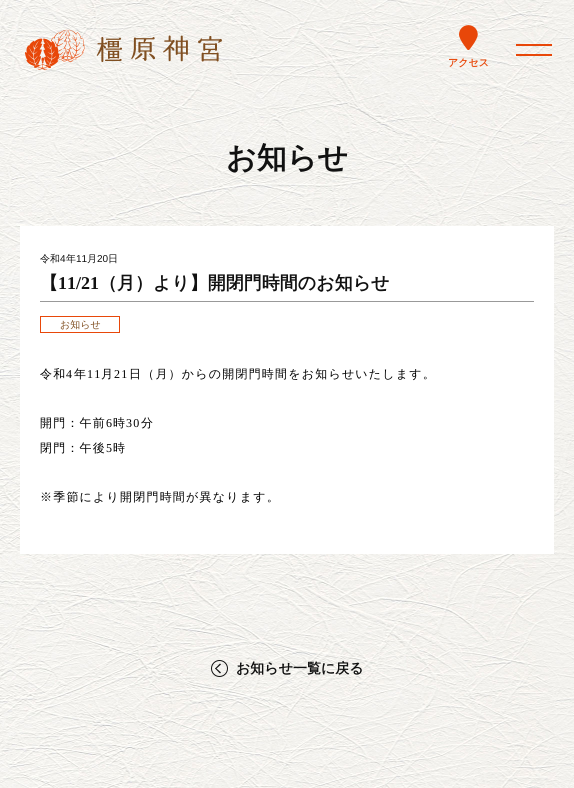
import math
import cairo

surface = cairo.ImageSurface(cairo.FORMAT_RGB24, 574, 788)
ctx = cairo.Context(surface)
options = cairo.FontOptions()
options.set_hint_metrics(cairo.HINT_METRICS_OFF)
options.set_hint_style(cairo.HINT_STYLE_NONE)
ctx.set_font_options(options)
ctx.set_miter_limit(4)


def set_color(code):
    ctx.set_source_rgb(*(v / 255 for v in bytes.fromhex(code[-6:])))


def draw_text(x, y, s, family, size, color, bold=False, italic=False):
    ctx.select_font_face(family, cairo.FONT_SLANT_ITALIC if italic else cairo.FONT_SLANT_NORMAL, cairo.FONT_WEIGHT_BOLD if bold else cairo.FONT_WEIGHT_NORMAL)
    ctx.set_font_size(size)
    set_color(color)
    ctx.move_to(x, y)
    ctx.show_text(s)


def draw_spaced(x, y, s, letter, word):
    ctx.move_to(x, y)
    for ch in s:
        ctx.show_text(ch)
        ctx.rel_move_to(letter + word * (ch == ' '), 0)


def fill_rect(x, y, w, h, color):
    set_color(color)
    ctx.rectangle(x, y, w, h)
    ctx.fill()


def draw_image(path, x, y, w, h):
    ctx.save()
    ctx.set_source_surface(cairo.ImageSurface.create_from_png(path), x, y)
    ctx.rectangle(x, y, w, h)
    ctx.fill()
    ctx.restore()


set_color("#ffffff")
ctx.paint()
draw_image("assets/img1.png", 0, 0, 574, 788)
fill_rect(516, 44, 36, 2, "#e84709")
fill_rect(516, 54, 36, 2, "#e84709")
draw_image("assets/img2.png", 25, 29, 197, 42)
draw_image("assets/img3.png", 459, 25, 19, 26)
draw_text(448, 66, "アクセス", "WenQuanYi Zen Hei", 10, "#e84709", bold=True)
draw_text(226, 168, "お知らせ", "WenQuanYi Zen Hei", 30, "#111111", bold=True)
fill_rect(20, 226, 534, 328, "#ffffff")
draw_text(40, 262, "令和", "WenQuanYi Zen Hei Medium", 10, "#111111")
draw_text(60, 262, "4", "Liberation Sans", 10, "#111111")
draw_text(66, 262, "年", "WenQuanYi Zen Hei Medium", 10, "#111111")
draw_text(76, 262, "11", "Liberation Sans", 10, "#111111")
draw_text(87, 262, "月", "WenQuanYi Zen Hei Medium", 10, "#111111")
draw_text(97, 262, "20", "Liberation Sans", 10, "#111111")
draw_text(108, 262, "日", "WenQuanYi Zen Hei Medium", 10, "#111111")
fill_rect(40, 301, 494, 1, "#999999")
draw_text(40, 289, "【", "WenQuanYi Zen Hei", 18, "#111111", bold=True)
draw_text(58, 289, "11/21", "Liberation Serif", 18, "#111111", bold=True)
draw_text(99, 289, "（月）より】開閉門時間のお知らせ", "WenQuanYi Zen Hei", 18, "#111111", bold=True)
ctx.rectangle(40.5, 316.5, 79, 16)
set_color("#e84709")
ctx.set_line_width(1)
ctx.stroke()
draw_text(60, 328, "お知らせ", "WenQuanYi Zen Hei Medium", 10, "#804f21")
ctx.set_font_size(12)
set_color("#000000")
draw_spaced(40, 378, "令和", 1.2, 0)
ctx.select_font_face("Liberation Serif")
draw_spaced(66, 378, "4", 1.2, 0)
ctx.select_font_face("WenQuanYi Zen Hei Medium")
draw_spaced(74, 378, "年", 1.2, 0)
ctx.select_font_face("Liberation Serif")
draw_spaced(87, 378, "11", 1.2, 0)
ctx.select_font_face("WenQuanYi Zen Hei Medium")
draw_spaced(101, 378, "月", 1.2, 0)
ctx.select_font_face("Liberation Serif")
draw_spaced(114, 378, "21", 1.2, 0)
ctx.select_font_face("WenQuanYi Zen Hei Medium")
draw_spaced(129, 378, "日（月）からの開閉門時間をお知らせいたします。", 1.2, 0)
draw_spaced(40, 427, "開門：午前", 1.2, 0)
ctx.select_font_face("Liberation Serif")
draw_spaced(106, 427, "6", 1.2, 0)
ctx.select_font_face("WenQuanYi Zen Hei Medium")
draw_spaced(113, 427, "時", 1.2, 0)
ctx.select_font_face("Liberation Serif")
draw_spaced(126, 427, "30", 1.2, 0)
ctx.select_font_face("WenQuanYi Zen Hei Medium")
draw_spaced(141, 427, "分", 1.2, 0)
draw_spaced(40, 452, "閉門：午後", 1.2, 0)
ctx.select_font_face("Liberation Serif")
draw_spaced(106, 452, "5", 1.2, 0)
ctx.select_font_face("WenQuanYi Zen Hei Medium")
draw_spaced(113, 452, "時", 1.2, 0)
draw_spaced(40, 501, "※季節により開閉門時間が異なります。", 1.2, 0)
ctx.new_path()
ctx.arc(219.5, 668.5, 8, 0, 2 * math.pi)
set_color("#111111")
ctx.stroke()
draw_text(236, 673, "お知らせ一覧に戻る", "WenQuanYi Zen Hei", 14, "#111111", bold=True)
ctx.new_path()
ctx.move_to(221, 672.5)
ctx.line_to(220, 673.5)
ctx.line_to(215, 668.5)
ctx.line_to(216, 668)
ctx.close_path()
ctx.fill()
ctx.new_path()
ctx.move_to(221, 664.5)
ctx.line_to(216, 669)
ctx.line_to(215, 668.5)
ctx.line_to(220, 663.5)
ctx.close_path()
ctx.fill()
surface.write_to_png("output.png")
